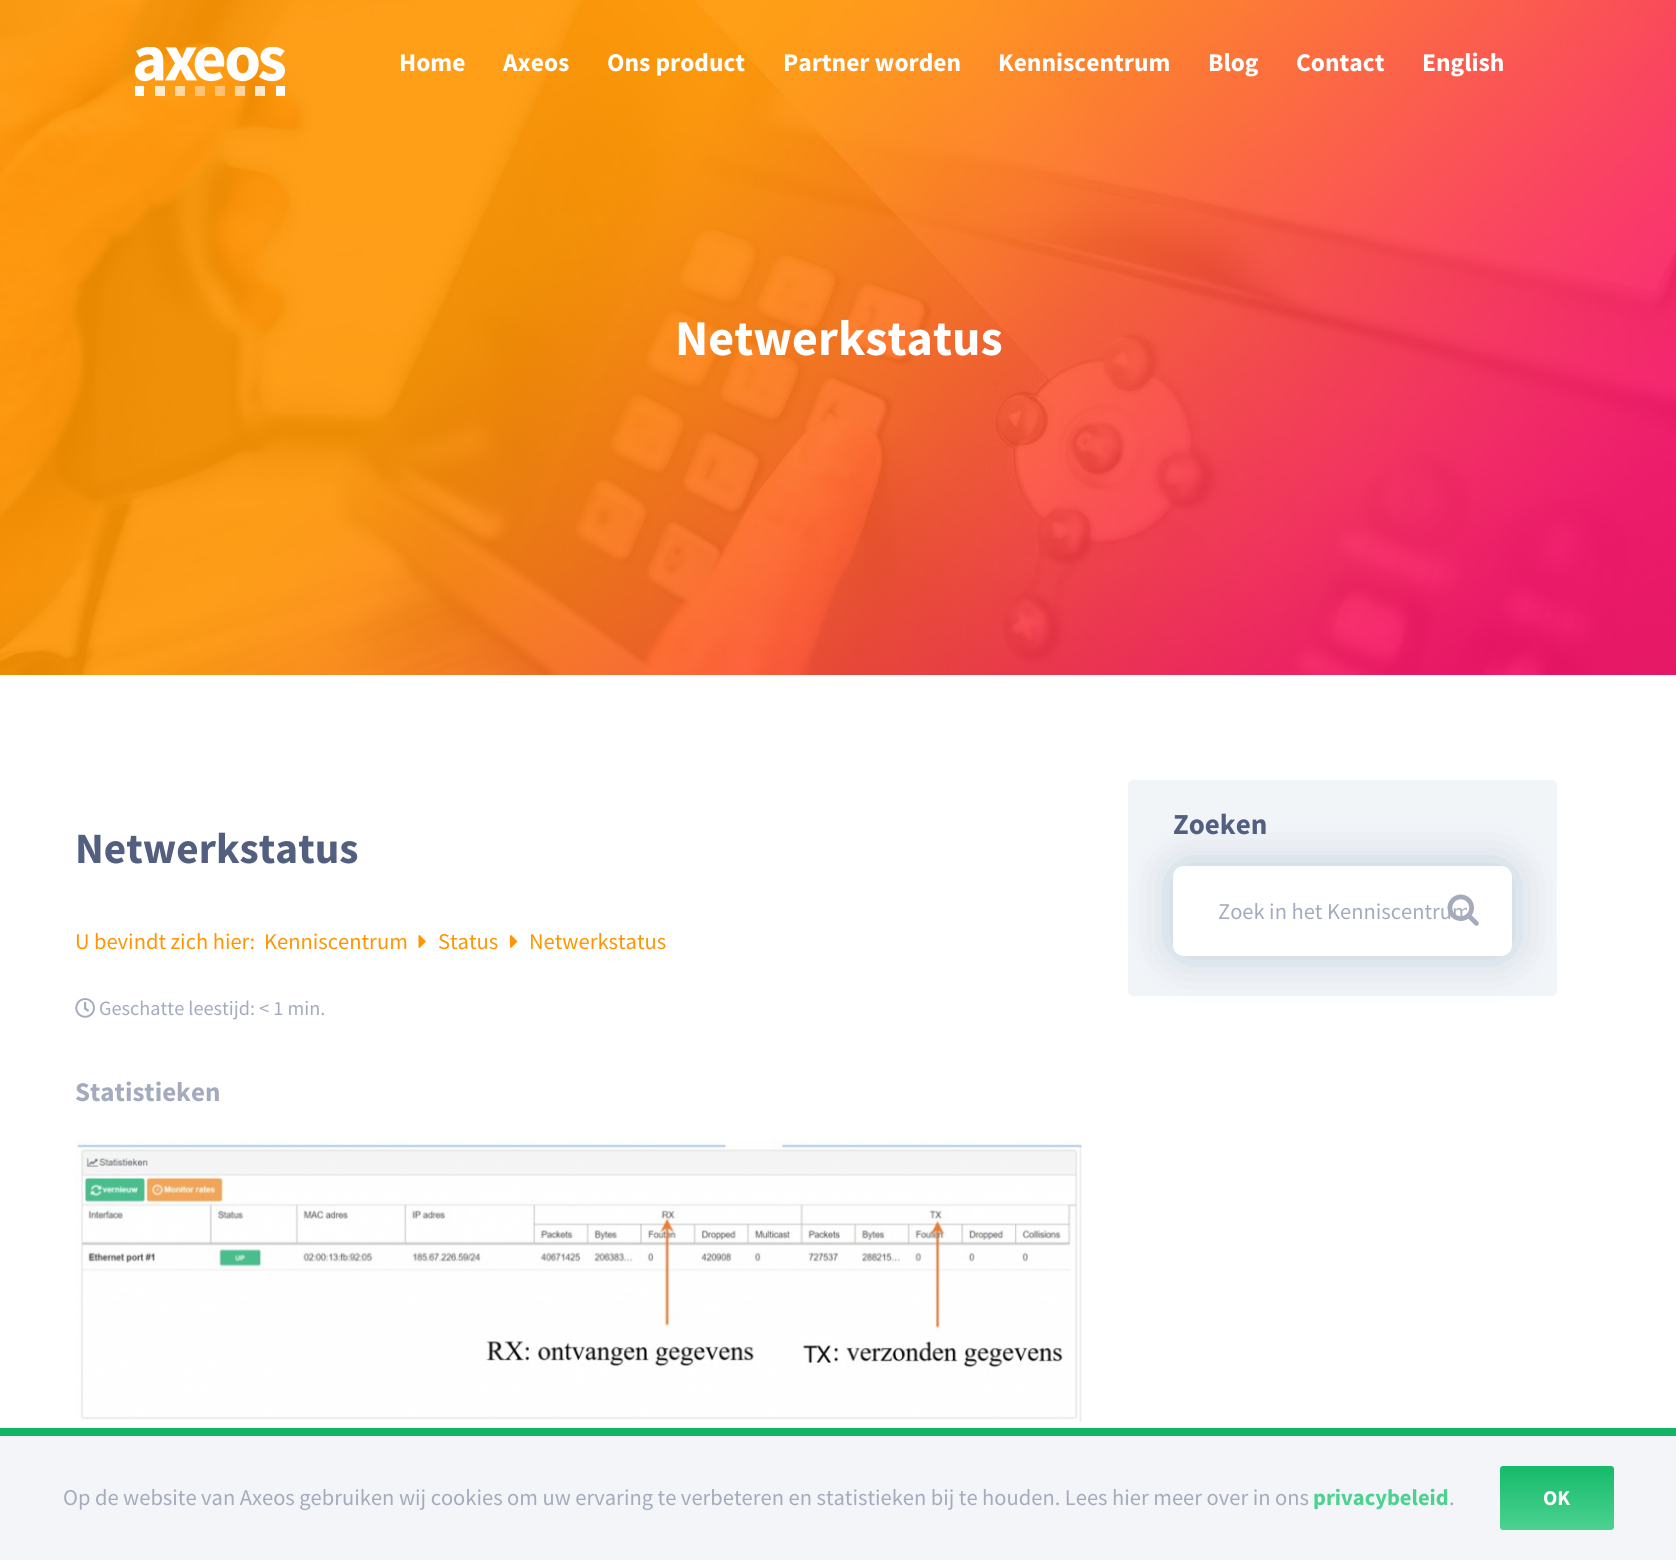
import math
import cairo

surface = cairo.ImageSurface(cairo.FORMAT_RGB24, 1676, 1560)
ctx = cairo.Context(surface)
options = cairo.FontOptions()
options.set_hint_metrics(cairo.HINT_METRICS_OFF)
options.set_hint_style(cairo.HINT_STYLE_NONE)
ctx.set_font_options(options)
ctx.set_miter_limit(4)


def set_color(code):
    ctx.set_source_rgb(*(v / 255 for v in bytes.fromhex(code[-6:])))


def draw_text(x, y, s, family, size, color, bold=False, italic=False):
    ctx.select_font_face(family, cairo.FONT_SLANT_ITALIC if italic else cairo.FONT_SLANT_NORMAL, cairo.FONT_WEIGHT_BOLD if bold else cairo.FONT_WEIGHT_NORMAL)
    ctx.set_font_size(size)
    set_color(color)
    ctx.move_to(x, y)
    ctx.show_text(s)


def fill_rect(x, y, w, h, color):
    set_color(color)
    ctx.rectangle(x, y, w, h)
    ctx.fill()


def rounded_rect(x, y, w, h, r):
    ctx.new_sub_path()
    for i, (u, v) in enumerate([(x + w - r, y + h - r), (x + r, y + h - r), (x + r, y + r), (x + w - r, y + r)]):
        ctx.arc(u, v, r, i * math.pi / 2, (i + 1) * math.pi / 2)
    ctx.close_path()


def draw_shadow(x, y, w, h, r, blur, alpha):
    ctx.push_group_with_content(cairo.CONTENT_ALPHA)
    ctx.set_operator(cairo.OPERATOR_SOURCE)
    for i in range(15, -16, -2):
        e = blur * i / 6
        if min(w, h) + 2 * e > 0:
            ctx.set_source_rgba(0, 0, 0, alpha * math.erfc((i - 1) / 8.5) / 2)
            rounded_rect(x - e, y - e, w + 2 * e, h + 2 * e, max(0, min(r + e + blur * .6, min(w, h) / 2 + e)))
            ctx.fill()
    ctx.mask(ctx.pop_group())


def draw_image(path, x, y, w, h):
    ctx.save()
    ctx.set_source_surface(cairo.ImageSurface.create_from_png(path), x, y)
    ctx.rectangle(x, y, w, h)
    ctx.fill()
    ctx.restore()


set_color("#ffffff")
ctx.paint()
fill_rect(0, 1436, 1676, 124, "#f3f5f8")
draw_image("assets/img2.png", 0, 0, 1676, 675)
draw_image("assets/img1.png", 135, 47, 150, 49)
draw_text(399, 71, "Home", "Source Sans Pro", 25.5, "#ffffff", bold=True)
draw_text(503, 71, "Axeos", "Source Sans Pro", 25.5, "#ffffff", bold=True)
draw_text(607, 71, "Ons product", "Source Sans Pro", 25.5, "#ffffff", bold=True)
draw_text(783, 71, "Partner worden", "Source Sans Pro", 25.5, "#ffffff", bold=True)
draw_text(998, 71, "Kenniscentrum", "Source Sans Pro", 25.5, "#ffffff", bold=True)
draw_text(1208, 71, "Blog", "Source Sans Pro", 25.5, "#ffffff", bold=True)
draw_text(1296, 71, "Contact", "Source Sans Pro", 25.5, "#ffffff", bold=True)
draw_text(1422, 71, "English", "Source Sans Pro", 25.5, "#ffffff", bold=True)
draw_text(675, 355, "Netwerkstatus", "Source Sans Pro", 50, "#ffffff", bold=True)
draw_text(75, 863, "Netwerkstatus", "Source Sans Pro", 43.25, "#525f7f", bold=True)
draw_text(75, 949, "U bevindt zich hier:", "Source Sans Pro", 22.5, "#ff9500")
draw_text(264, 949, "Kenniscentrum", "Source Sans Pro", 22.5, "#ff9500")
draw_image("assets/img3.png", 418, 935, 8, 13)
draw_text(438, 949, "Status", "Source Sans Pro", 22.5, "#ff9500")
draw_image("assets/img4.png", 510, 935, 8, 13)
draw_text(529, 949, "Netwerkstatus", "Source Sans Pro", 22.5, "#ff9500")
draw_image("assets/img5.png", 75, 998, 20, 20)
draw_text(99, 1015, "Geschatte leestijd: < 1 min.", "Source Sans Pro", 20.25, "#a3abbd")
draw_text(75, 1101, "Statistieken", "Source Sans Pro", 27, "#a3abbd", bold=True)
draw_image("assets/img6.png", 75, 1140, 1007, 282)
set_color("#f2f5f8")
rounded_rect(1128, 780, 429, 216, 5)
ctx.fill()
draw_text(1173, 834, "Zoeken", "Source Sans Pro", 29, "#525f7f", bold=True)
set_color("#416d90")
draw_shadow(1173, 866, 339, 90, 11, 22.5, 0.3)
set_color("#ffffff")
rounded_rect(1173, 866, 339, 90, 11)
ctx.fill()
ctx.save()
ctx.rectangle(1218, 896, 249, 28)
ctx.clip()
draw_text(1218, 919, "Zoek in het Kenniscentrum", "Source Sans Pro", 22.5, "#a3abbd")
ctx.restore()
draw_image("assets/img7.png", 1447, 894, 32, 32)
fill_rect(0, 1428, 1676, 8, "#12b563")
draw_text(63, 1505, "Op de website van Axeos gebruiken wij cookies om uw ervaring te verbeteren en statistieken bij te houden. Lees hier meer over in ons", "Source Sans Pro", 22.5, "#a3abbd")
draw_text(1313, 1505, "privacybeleid", "Source Sans Pro", 22.5, "#4cd191", bold=True)
draw_text(1449, 1505, ".", "Source Sans Pro", 22.5, "#a3abbd")
gradient = cairo.LinearGradient(1557, 1530, 1557, 1466)
gradient.add_color_stop_rgba(0, 0.298, 0.82, 0.569, 1)
gradient.add_color_stop_rgba(1, 0.082, 0.733, 0.412, 1)
ctx.set_source(gradient)
rounded_rect(1500, 1466, 114, 64, 3)
ctx.fill()
draw_text(1543, 1505, "OK", "Source Sans Pro", 21, "#ffffff", bold=True)
surface.write_to_png("output.png")
